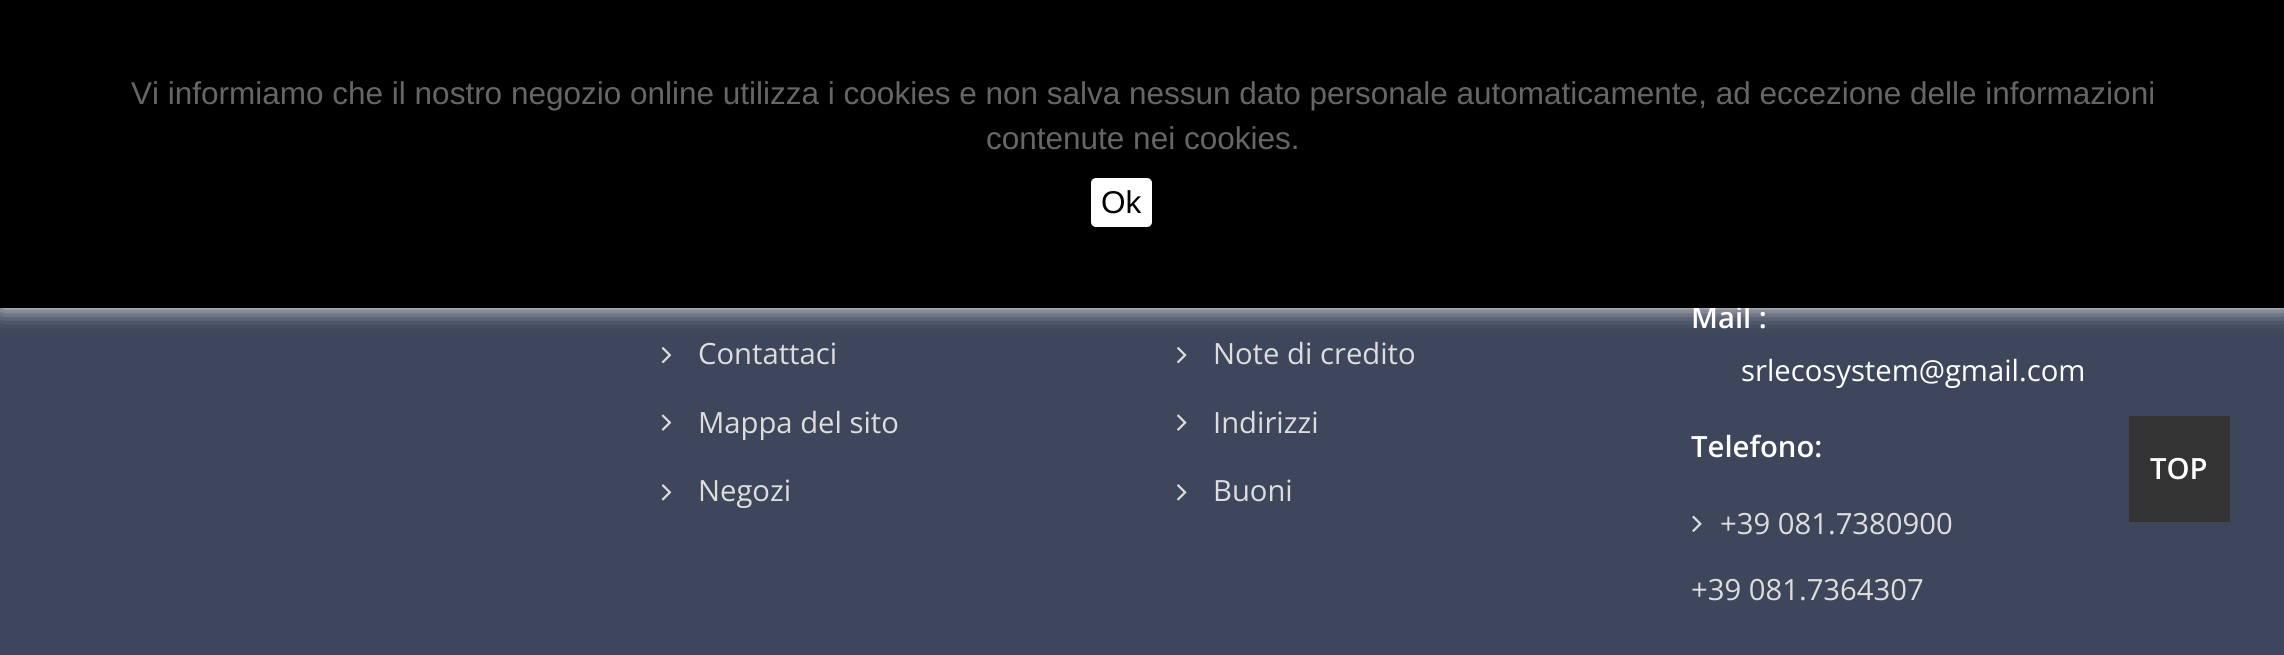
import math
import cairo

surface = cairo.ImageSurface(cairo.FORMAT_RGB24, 2284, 655)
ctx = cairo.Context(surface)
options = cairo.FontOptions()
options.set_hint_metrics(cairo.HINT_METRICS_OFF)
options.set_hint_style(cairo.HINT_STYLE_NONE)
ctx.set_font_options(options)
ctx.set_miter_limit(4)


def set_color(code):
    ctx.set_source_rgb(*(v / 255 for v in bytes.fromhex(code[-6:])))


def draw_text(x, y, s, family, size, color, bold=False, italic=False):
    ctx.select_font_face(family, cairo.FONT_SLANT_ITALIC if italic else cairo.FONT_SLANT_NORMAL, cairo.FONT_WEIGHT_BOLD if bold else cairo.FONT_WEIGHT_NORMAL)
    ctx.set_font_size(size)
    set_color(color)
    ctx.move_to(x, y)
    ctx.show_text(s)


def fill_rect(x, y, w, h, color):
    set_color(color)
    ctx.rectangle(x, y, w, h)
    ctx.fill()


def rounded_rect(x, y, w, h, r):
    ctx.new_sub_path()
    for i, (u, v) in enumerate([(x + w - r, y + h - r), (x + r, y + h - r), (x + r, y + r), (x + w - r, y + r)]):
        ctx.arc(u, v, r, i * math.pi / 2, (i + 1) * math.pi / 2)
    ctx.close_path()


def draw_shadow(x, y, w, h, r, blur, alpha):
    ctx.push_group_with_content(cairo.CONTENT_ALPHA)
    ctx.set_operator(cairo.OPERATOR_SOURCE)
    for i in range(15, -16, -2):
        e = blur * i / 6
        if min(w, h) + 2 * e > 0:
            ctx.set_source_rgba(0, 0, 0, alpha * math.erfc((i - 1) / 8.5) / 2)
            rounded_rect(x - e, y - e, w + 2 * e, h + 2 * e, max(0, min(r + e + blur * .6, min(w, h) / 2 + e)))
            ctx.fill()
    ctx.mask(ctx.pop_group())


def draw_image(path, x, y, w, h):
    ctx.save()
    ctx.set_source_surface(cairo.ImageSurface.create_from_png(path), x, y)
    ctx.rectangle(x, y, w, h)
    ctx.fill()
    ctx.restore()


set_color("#3d465a")
ctx.paint()
set_color("#ffffff")
draw_shadow(0, 0, 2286, 308, 0, 11, 1)
draw_text(1691, 328, "Mail :", "Open Sans SemiBold", 29.25, "#ffffff")
fill_rect(0, 0, 2284, 308, "#000000")
draw_text(131, 104, "Vi informiamo che il nostro negozio online utilizza i cookies e non salva nessun dato personale automaticamente, ad eccezione delle informazioni", "Liberation Sans", 31.5, "#666666")
draw_text(986, 149, "contenute nei cookies.", "Liberation Sans", 31.5, "#666666")
set_color("#ffffff")
rounded_rect(1091, 178, 61, 49, 5)
ctx.fill()
draw_text(1101, 213, "Ok", "Liberation Sans", 31.5, "#000000")
draw_image("assets/img1.png", 661, 347, 11, 17)
draw_text(698, 364, "Contattaci", "Open Sans", 29.25, "#dddddd")
draw_image("assets/img2.png", 661, 414, 11, 17)
draw_text(698, 433, "Mappa del sito", "Open Sans", 29.25, "#dddddd")
draw_image("assets/img3.png", 661, 484, 11, 17)
draw_text(698, 501, "Negozi", "Open Sans", 29.25, "#dddddd")
draw_image("assets/img4.png", 1177, 347, 10, 17)
draw_text(1213, 364, "Note di credito", "Open Sans", 29.25, "#dddddd")
draw_image("assets/img5.png", 1177, 414, 10, 17)
draw_text(1213, 433, "Indirizzi", "Open Sans", 29.25, "#dddddd")
draw_image("assets/img6.png", 1177, 484, 10, 17)
draw_text(1213, 501, "Buoni", "Open Sans", 29.25, "#dddddd")
draw_text(1741, 381, "srlecosystem@gmail.com", "Open Sans", 29.25, "#ffffff")
draw_text(1691, 457, "Telefono:", "Open Sans SemiBold", 29.25, "#ffffff")
draw_image("assets/img7.png", 1692, 515, 10, 17)
draw_text(1720, 534, "+39 081.7380900", "Open Sans", 29.25, "#dddddd")
draw_text(1691, 600, "+39 081.7364307", "Open Sans", 29.25, "#dddddd")
fill_rect(2129, 416, 101, 106, "#333333")
draw_text(2150, 479, "TOP", "Open Sans SemiBold", 29.25, "#ffffff")
surface.write_to_png("output.png")
